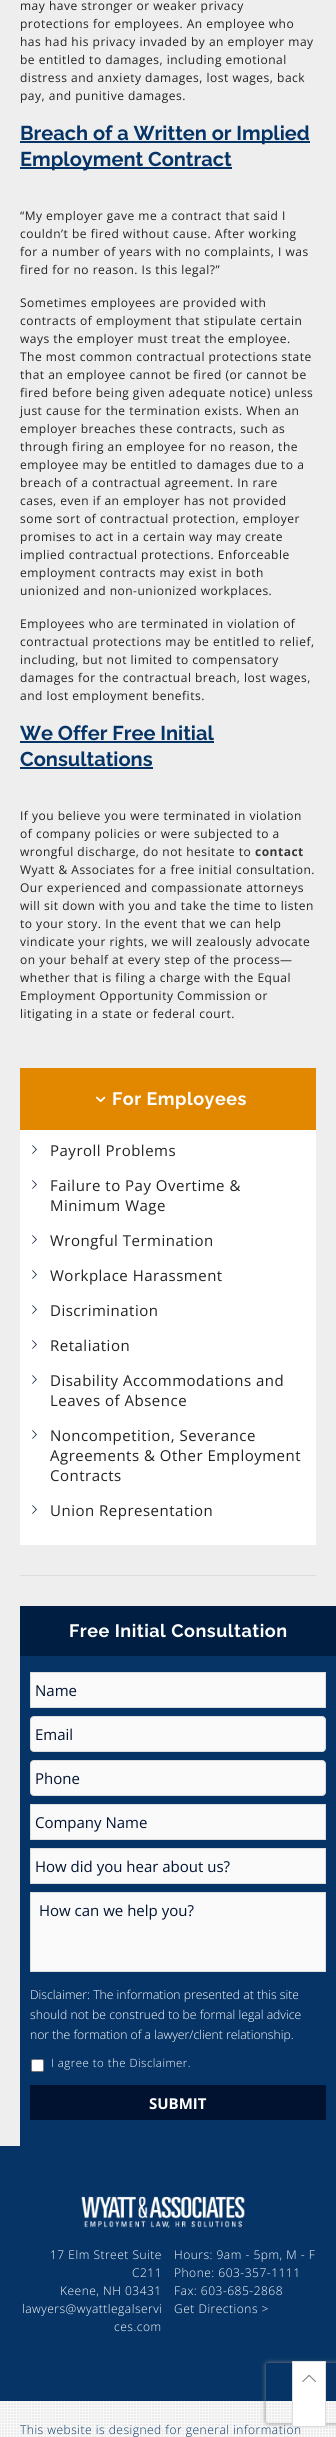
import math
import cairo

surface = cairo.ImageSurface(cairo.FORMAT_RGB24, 336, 2437)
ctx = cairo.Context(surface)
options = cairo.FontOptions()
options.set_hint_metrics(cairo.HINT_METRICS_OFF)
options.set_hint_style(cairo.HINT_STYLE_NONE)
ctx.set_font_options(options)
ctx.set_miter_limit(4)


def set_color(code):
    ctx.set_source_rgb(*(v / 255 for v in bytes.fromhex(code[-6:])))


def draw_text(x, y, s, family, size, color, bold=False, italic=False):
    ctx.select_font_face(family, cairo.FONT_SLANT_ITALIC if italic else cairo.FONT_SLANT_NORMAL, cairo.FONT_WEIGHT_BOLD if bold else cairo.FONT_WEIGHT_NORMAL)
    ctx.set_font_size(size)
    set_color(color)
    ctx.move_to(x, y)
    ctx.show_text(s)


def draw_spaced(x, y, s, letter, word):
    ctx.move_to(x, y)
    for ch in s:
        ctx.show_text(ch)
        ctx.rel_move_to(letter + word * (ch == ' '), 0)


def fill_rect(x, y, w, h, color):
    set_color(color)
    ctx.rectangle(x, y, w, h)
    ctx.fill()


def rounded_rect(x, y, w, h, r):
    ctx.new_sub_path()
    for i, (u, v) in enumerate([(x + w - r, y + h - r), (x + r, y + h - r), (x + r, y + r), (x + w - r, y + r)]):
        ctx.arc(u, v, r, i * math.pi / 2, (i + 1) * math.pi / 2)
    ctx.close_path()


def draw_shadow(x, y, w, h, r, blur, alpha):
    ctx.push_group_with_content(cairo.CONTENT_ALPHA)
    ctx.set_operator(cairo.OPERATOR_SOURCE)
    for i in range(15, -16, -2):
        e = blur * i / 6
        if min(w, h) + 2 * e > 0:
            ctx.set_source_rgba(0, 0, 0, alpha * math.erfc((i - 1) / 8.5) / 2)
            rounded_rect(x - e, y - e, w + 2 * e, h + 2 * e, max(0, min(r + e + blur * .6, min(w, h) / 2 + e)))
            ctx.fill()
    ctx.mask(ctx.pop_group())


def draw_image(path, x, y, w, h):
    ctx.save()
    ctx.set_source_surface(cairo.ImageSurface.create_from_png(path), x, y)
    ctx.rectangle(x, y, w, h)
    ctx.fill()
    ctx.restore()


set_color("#063466")
ctx.paint()
fill_rect(0, 0, 336, 2146, "#eeeeee")
ctx.select_font_face("Open Sans")
ctx.set_font_size(12)
set_color("#222222")
draw_spaced(20, 10, "may have stronger or weaker privacy", 0.5, 0)
draw_spaced(20, 28, "protections for employees. An employee who", 0.5, 0)
draw_spaced(20, 46, "has had his privacy invaded by an employer may", 0.5, 0)
draw_spaced(20, 64, "be entitled to damages, including emotional", 0.5, 0)
draw_spaced(20, 82, "distress and anxiety damages, lost wages, back", 0.5, 0)
draw_spaced(20, 100, "pay, and punitive damages.", 0.5, 0)
fill_rect(20, 141, 290, 2, "#063466")
draw_text(20, 140, "Breach of a Written or Implied", "Raleway", 20, "#063466", bold=True)
fill_rect(20, 167, 212, 2, "#063466")
draw_text(20, 166, "Employment Contract", "Raleway", 20, "#063466", bold=True)
ctx.select_font_face("Open Sans")
ctx.set_font_size(12)
set_color("#222222")
draw_spaced(20, 220, "“My employer gave me a contract that said I", 0.5, 0)
draw_spaced(20, 238, "couldn’t be fired without cause. After working", 0.5, 0)
draw_spaced(20, 256, "for a number of years with no complaints, I was", 0.5, 0)
draw_spaced(20, 274, "fired for no reason. Is this legal?”", 0.5, 0)
draw_spaced(20, 307, "Sometimes employees are provided with", 0.5, 0)
draw_spaced(20, 325, "contracts of employment that stipulate certain", 0.5, 0)
draw_spaced(20, 343, "ways the employer must treat the employee.", 0.5, 0)
draw_spaced(20, 361, "The most common contractual protections state", 0.5, 0)
draw_spaced(20, 379, "that an employee cannot be fired (or cannot be", 0.5, 0)
draw_spaced(20, 397, "fired before being given adequate notice) unless", 0.5, 0)
draw_spaced(20, 415, "just cause for the termination exists. When an", 0.5, 0)
draw_spaced(20, 433, "employer breaches these contracts, such as", 0.5, 0)
draw_spaced(20, 451, "through firing an employee for no reason, the", 0.5, 0)
draw_spaced(20, 469, "employee may be entitled to damages due to a", 0.5, 0)
draw_spaced(20, 487, "breach of a contractual agreement. In rare", 0.5, 0)
draw_spaced(20, 505, "cases, even if an employer has not provided", 0.5, 0)
draw_spaced(20, 523, "some sort of contractual protection, employer", 0.5, 0)
draw_spaced(20, 541, "promises to act in a certain way may create", 0.5, 0)
draw_spaced(20, 559, "implied contractual protections. Enforceable", 0.5, 0)
draw_spaced(20, 577, "employment contracts may exist in both", 0.5, 0)
draw_spaced(20, 595, "unionized and non-unionized workplaces.", 0.5, 0)
draw_spaced(20, 628, "Employees who are terminated in violation of", 0.5, 0)
draw_spaced(20, 646, "contractual protections may be entitled to relief,", 0.5, 0)
draw_spaced(20, 664, "including, but not limited to compensatory", 0.5, 0)
draw_spaced(20, 682, "damages for the contractual breach, lost wages,", 0.5, 0)
draw_spaced(20, 700, "and lost employment benefits.", 0.5, 0)
draw_text(20, 740, "We Offer Free Initial", "Raleway", 20, "#063466", bold=True)
fill_rect(20, 741, 194, 2, "#063466")
draw_text(20, 766, "Consultations", "Raleway", 20, "#063466", bold=True)
fill_rect(20, 767, 133, 2, "#063466")
ctx.select_font_face("Open Sans")
ctx.set_font_size(12)
set_color("#222222")
draw_spaced(20, 820, "If you believe you were terminated in violation", 0.5, 0)
draw_spaced(20, 838, "of company policies or were subjected to a", 0.5, 0)
draw_spaced(20, 856, "wrongful discharge, do not hesitate to", 0.5, 0)
ctx.select_font_face("Open Sans", cairo.FONT_SLANT_NORMAL, cairo.FONT_WEIGHT_BOLD)
set_color("#373737")
draw_spaced(255, 856, "contact", 0.5, 0)
ctx.select_font_face("Open Sans")
set_color("#222222")
draw_spaced(20, 874, "Wyatt & Associates for a free initial consultation.", 0.5, 0)
draw_spaced(20, 892, "Our experienced and compassionate attorneys", 0.5, 0)
draw_spaced(20, 910, "will sit down with you and take the time to listen", 0.5, 0)
draw_spaced(20, 928, "to your story. In the event that we can help", 0.5, 0)
draw_spaced(20, 946, "vindicate your rights, we will zealously advocate", 0.5, 0)
draw_spaced(20, 964, "on your behalf at every step of the process—", 0.5, 0)
draw_spaced(20, 982, "whether that is filing a charge with the Equal", 0.5, 0)
draw_spaced(20, 1000, "Employment Opportunity Commission or", 0.5, 0)
draw_spaced(20, 1018, "litigating in a state or federal court.", 0.5, 0)
fill_rect(20, 1575, 296, 1, "#dddddd")
fill_rect(20, 1068, 296, 62, "#e28700")
draw_image("assets/img1.png", 96, 1096, 10, 7)
ctx.select_font_face("Raleway", cairo.FONT_SLANT_NORMAL, cairo.FONT_WEIGHT_BOLD)
ctx.set_font_size(18)
set_color("#ffffff")
draw_spaced(112, 1105, "For Employees", 0.5, 0)
fill_rect(20, 1130, 296, 415, "#ffffff")
draw_image("assets/img2.png", 32, 1145, 5, 9)
ctx.select_font_face("Open Sans")
ctx.set_font_size(15)
set_color("#222222")
draw_spaced(50, 1156, "Payroll Problems", 0.5, 0)
draw_image("assets/img2.png", 32, 1180, 5, 9)
draw_spaced(50, 1191, "Failure to Pay Overtime &", 0.5, 0)
draw_spaced(50, 1211, "Minimum Wage", 0.5, 0)
draw_image("assets/img2.png", 32, 1235, 5, 9)
draw_spaced(50, 1246, "Wrongful Termination", 0.5, 0)
draw_image("assets/img2.png", 32, 1270, 5, 9)
draw_spaced(50, 1281, "Workplace Harassment", 0.5, 0)
draw_image("assets/img2.png", 32, 1305, 5, 9)
draw_spaced(50, 1316, "Discrimination", 0.5, 0)
draw_image("assets/img2.png", 32, 1340, 5, 9)
draw_spaced(50, 1351, "Retaliation", 0.5, 0)
draw_image("assets/img2.png", 32, 1375, 5, 9)
draw_spaced(50, 1386, "Disability Accommodations and", 0.5, 0)
draw_spaced(50, 1406, "Leaves of Absence", 0.5, 0)
draw_image("assets/img2.png", 32, 1430, 5, 9)
draw_spaced(50, 1441, "Noncompetition, Severance", 0.5, 0)
draw_spaced(50, 1461, "Agreements & Other Employment", 0.5, 0)
draw_spaced(50, 1481, "Contracts", 0.5, 0)
draw_image("assets/img2.png", 32, 1505, 5, 9)
draw_spaced(50, 1516, "Union Representation", 0.5, 0)
fill_rect(20, 1656, 316, 490, "#063466")
fill_rect(20, 1606, 316, 50, "#001e41")
ctx.select_font_face("Raleway", cairo.FONT_SLANT_NORMAL, cairo.FONT_WEIGHT_BOLD)
ctx.set_font_size(18)
set_color("#ffffff")
draw_spaced(69, 1637, "Free Initial Consultation", 0.5, 0)
set_color("#fafafa")
ctx.rectangle(30.5, 1672.5, 295, 35)
ctx.fill_preserve()
set_color("#dddddd")
ctx.set_line_width(1)
ctx.stroke()
draw_text(35, 1696, "Name", "Open Sans", 15, "#011230")
set_color("#fafafa")
rounded_rect(30.5, 1716.5, 295, 35, 3.5)
ctx.fill_preserve()
set_color("#dddddd")
ctx.stroke()
draw_text(35, 1740, "Email", "Open Sans", 15, "#011230")
set_color("#fafafa")
rounded_rect(30.5, 1760.5, 295, 35, 3.5)
ctx.fill_preserve()
set_color("#dddddd")
ctx.stroke()
draw_text(35, 1784, "Phone", "Open Sans", 15, "#011230")
set_color("#fafafa")
ctx.rectangle(30.5, 1804.5, 295, 35)
ctx.fill_preserve()
set_color("#dddddd")
ctx.stroke()
draw_text(35, 1828, "Company Name", "Open Sans", 15, "#011230")
set_color("#fafafa")
ctx.rectangle(30.5, 1848.5, 295, 35)
ctx.fill_preserve()
set_color("#dddddd")
ctx.stroke()
draw_text(35, 1872, "How did you hear about us?", "Open Sans", 15, "#011230")
set_color("#fafafa")
ctx.rectangle(30.5, 1892.5, 295, 79)
ctx.fill_preserve()
set_color("#dddddd")
ctx.stroke()
draw_text(39, 1916, "How can we help you?", "Open Sans", 15, "#011230")
draw_text(30, 1999, "Disclaimer: The information presented at this site", "Open Sans Light", 12.2, "#ffffff")
draw_text(30, 2019, "should not be construed to be formal legal advice", "Open Sans Light", 12.2, "#ffffff")
draw_text(30, 2039, "nor the formation of a lawyer/client relationship.", "Open Sans Light", 12.2, "#ffffff")
rounded_rect(31.5, 2059.5, 12, 12, 1.5)
ctx.fill_preserve()
set_color("#767676")
ctx.stroke()
ctx.set_font_size(11.4)
set_color("#ffffff")
draw_spaced(51, 2067, "I agree to the Disclaimer.", 0.5, 0)
fill_rect(30, 2085, 296, 35, "#011230")
draw_text(149, 2109, "SUBMIT", "Open Sans", 15, "#ffffff", bold=True)
draw_image("assets/img3.png", 81, 2196, 164, 32)
ctx.select_font_face("Open Sans Light")
ctx.set_font_size(12)
draw_spaced(50, 2259, "17 Elm Street Suite", 0.5, 0)
draw_spaced(132, 2277, "C211", 0.5, 0)
draw_spaced(60, 2295, "Keene, NH 03431", 0.5, 0)
draw_spaced(22, 2313, "lawyers@wyattlegalservi", 0.5, 0)
draw_spaced(114, 2331, "ces.com", 0.5, 0)
draw_spaced(174, 2259, "Hours: 9am - 5pm, M - F", 0.5, 0)
draw_spaced(174, 2277, "Phone: 603-357-1111", 0.5, 0)
draw_spaced(174, 2295, "Fax: 603-685-2868", 0.5, 0)
draw_spaced(174, 2313, "Get Directions >", 0.5, 0)
fill_rect(0, 2401, 336, 36, "#f9f9f9")
draw_image("assets/img4.png", 0, 2401, 336, 36)
set_color("#063466")
draw_spaced(20, 2434, "This website is designed for general information", 0.5, 0)
ctx.save()
ctx.set_fill_rule(cairo.FILL_RULE_EVEN_ODD)
ctx.new_path()
ctx.move_to(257, 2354)
ctx.line_to(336, 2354)
ctx.line_to(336, 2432)
ctx.line_to(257, 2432)
ctx.close_path()
ctx.move_to(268, 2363)
ctx.line_to(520, 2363)
ctx.curve_to(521, 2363, 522, 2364, 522, 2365)
ctx.line_to(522, 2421)
ctx.curve_to(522, 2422, 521, 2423, 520, 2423)
ctx.line_to(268, 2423)
ctx.curve_to(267, 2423, 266, 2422, 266, 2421)
ctx.line_to(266, 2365)
ctx.curve_to(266, 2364, 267, 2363, 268, 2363)
ctx.close_path()
ctx.clip()
set_color("#808080")
draw_shadow(266, 2363, 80, 60, 2, 2.5, 1)
ctx.restore()
set_color("#ffffff")
ctx.rectangle(292.5, 2361.5, 33, 65)
ctx.fill_preserve()
set_color("#dddddd")
ctx.stroke()
draw_image("assets/img5.png", 302, 2374, 14, 8)
surface.write_to_png("output.png")
